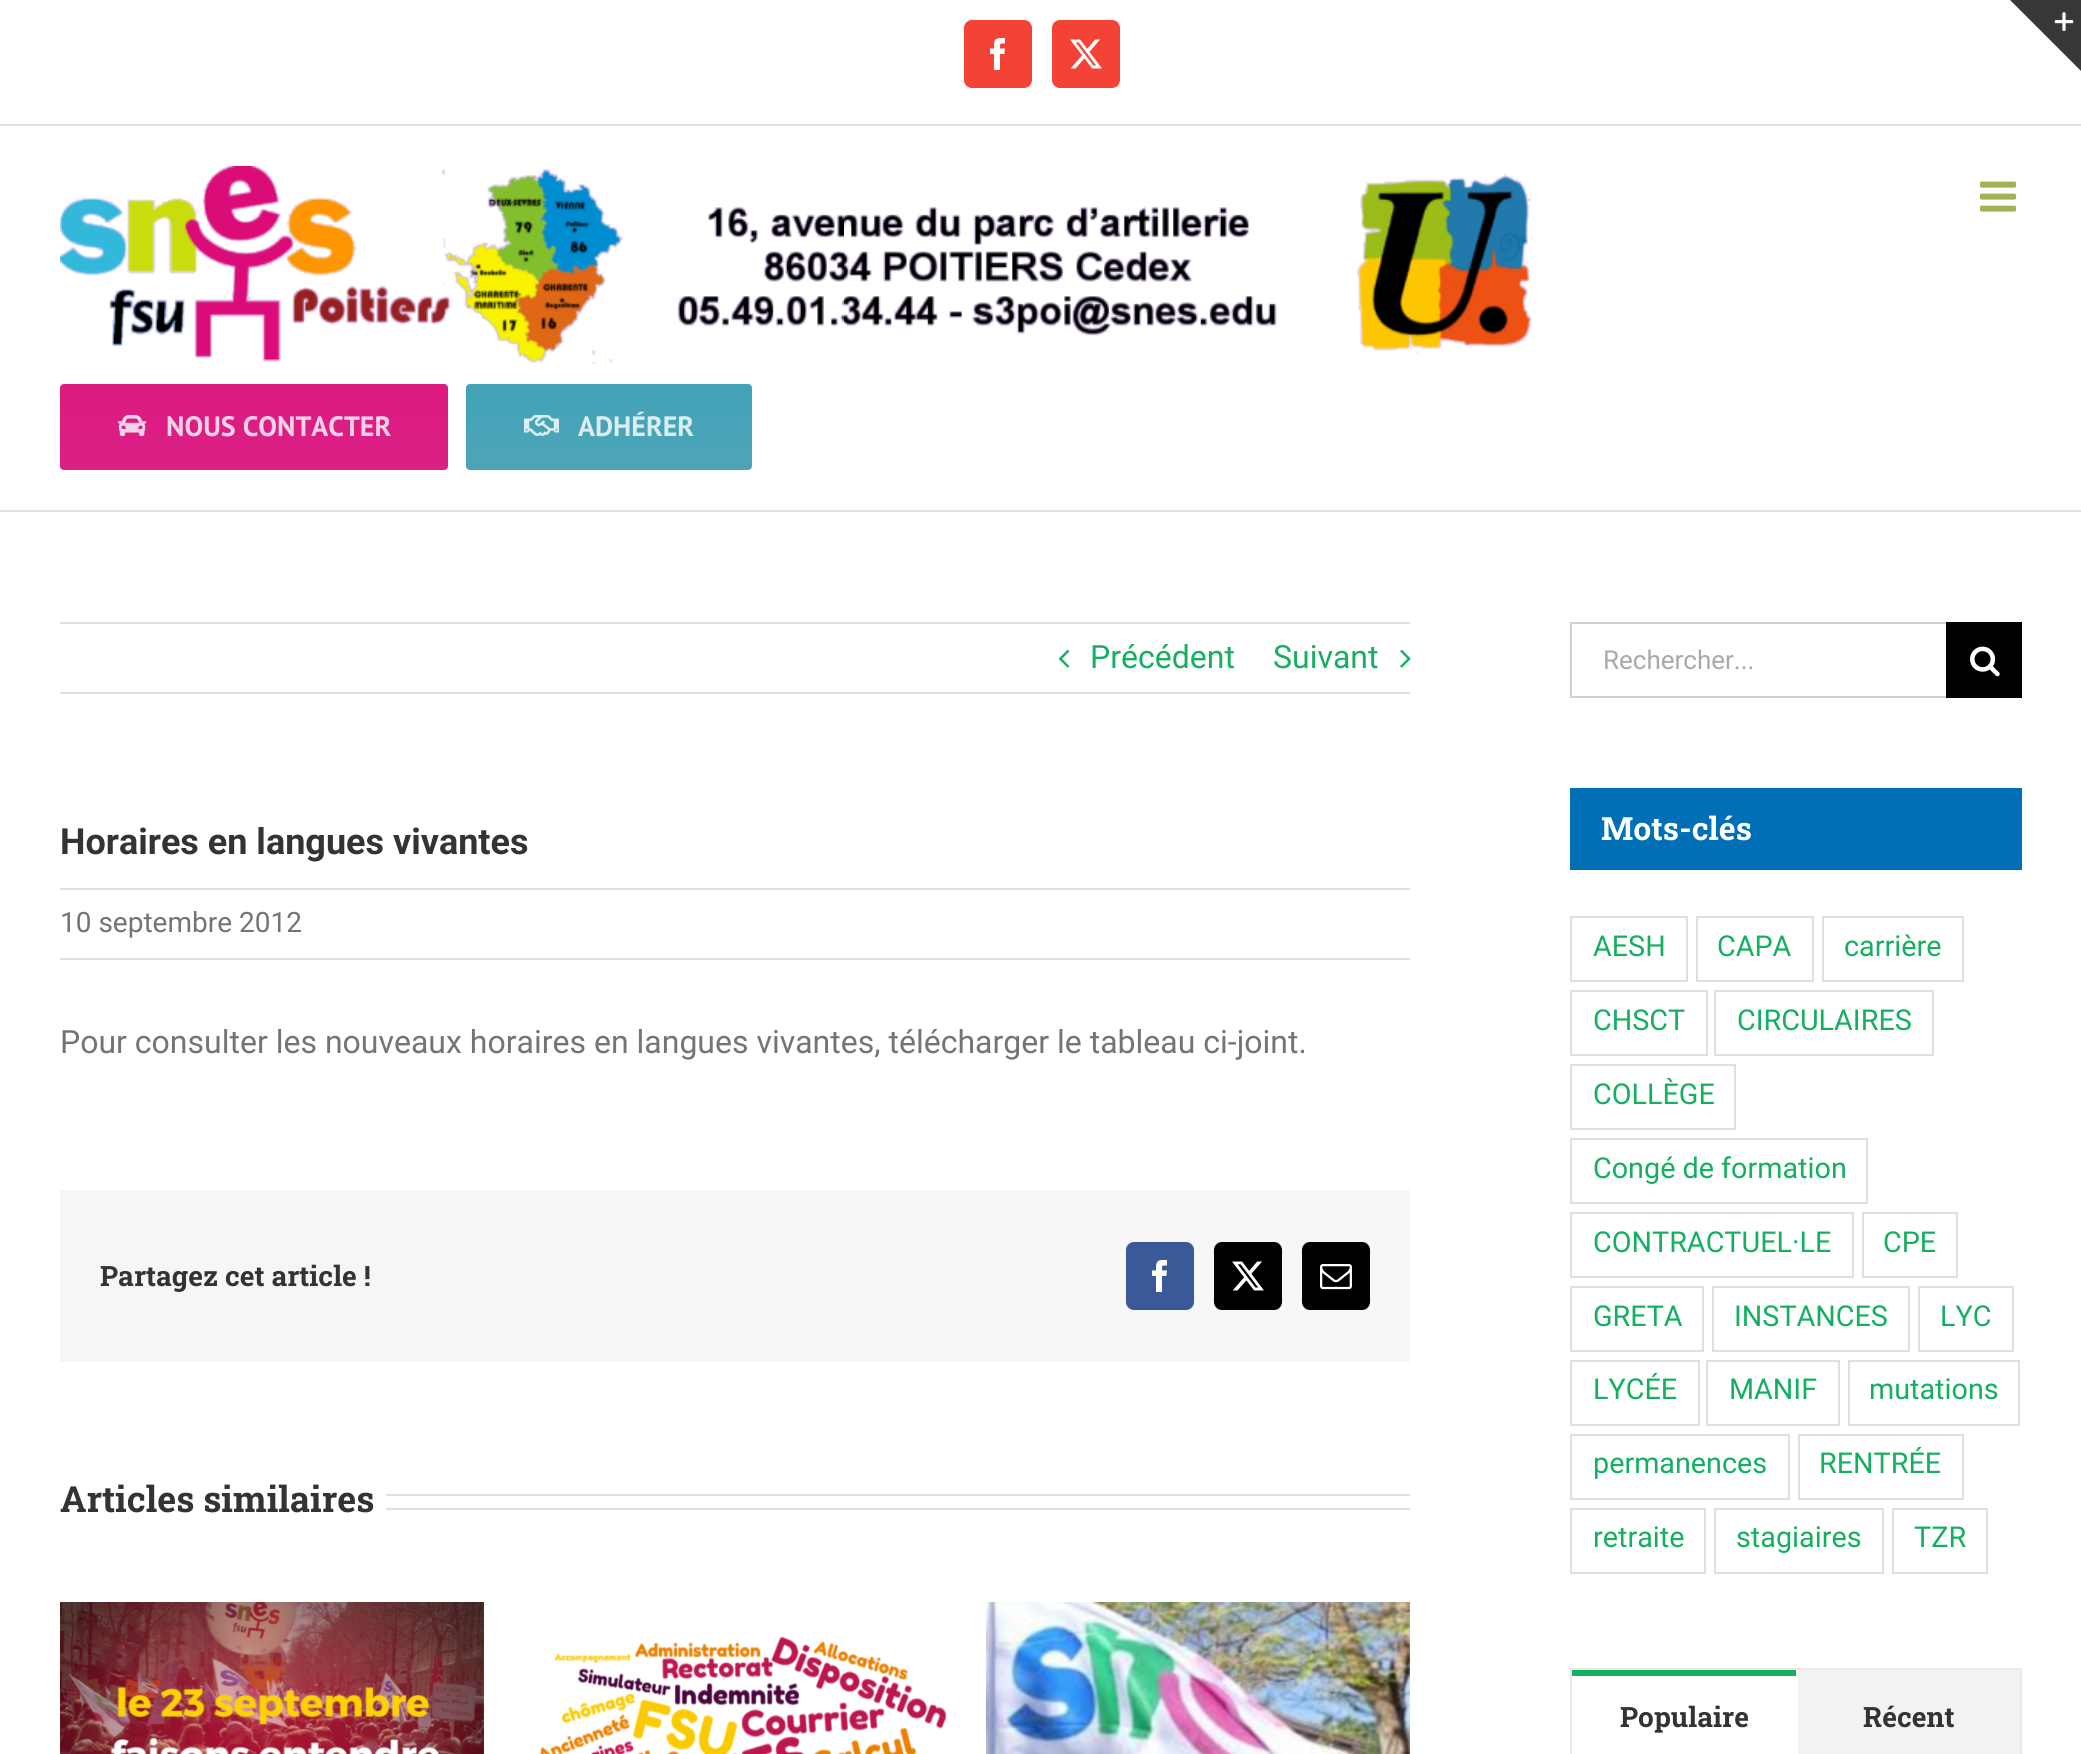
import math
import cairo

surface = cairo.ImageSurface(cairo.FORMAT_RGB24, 2081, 1754)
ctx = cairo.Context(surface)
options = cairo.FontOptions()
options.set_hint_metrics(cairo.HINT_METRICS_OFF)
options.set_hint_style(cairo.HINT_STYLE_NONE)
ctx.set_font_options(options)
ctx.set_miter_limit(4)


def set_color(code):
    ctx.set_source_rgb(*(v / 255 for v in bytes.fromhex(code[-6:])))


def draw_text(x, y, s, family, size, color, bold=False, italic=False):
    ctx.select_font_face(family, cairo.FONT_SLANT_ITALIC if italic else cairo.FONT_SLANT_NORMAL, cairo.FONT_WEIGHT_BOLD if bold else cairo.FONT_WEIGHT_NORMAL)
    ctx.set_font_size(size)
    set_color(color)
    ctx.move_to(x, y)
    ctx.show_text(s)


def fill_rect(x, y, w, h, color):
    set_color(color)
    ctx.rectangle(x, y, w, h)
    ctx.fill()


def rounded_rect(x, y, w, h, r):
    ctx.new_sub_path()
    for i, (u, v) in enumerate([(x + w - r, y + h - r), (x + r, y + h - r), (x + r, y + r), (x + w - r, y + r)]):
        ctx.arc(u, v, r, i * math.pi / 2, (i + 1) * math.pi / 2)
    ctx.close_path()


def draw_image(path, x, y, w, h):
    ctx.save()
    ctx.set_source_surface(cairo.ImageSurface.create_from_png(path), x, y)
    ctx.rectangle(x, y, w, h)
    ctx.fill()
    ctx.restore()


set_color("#ffffff")
ctx.paint()
set_color("#363839")
ctx.new_path()
ctx.move_to(2010, 0)
ctx.line_to(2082, 0)
ctx.line_to(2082, 72)
ctx.close_path()
ctx.fill()
draw_image("assets/img1.png", 2054, 12, 20, 19)
fill_rect(0, 124, 2081, 2, "#e1e1e1")
set_color("#f44336")
rounded_rect(965, 21, 66, 66, 7)
ctx.fill_preserve()
ctx.stroke()
draw_image("assets/img2.png", 990, 38, 15, 32)
rounded_rect(1053, 21, 66, 66, 7)
ctx.fill_preserve()
ctx.stroke()
draw_image("assets/img3.png", 1070, 39, 32, 30)
fill_rect(0, 510, 2081, 2, "#e1e1e1")
draw_image("assets/img4.png", 1980, 181, 36, 31)
draw_image("assets/img5.png", 60, 166, 1472, 198)
gradient = cairo.LinearGradient(254, 384, 254, 470)
gradient.add_color_stop_rgba(0, 0.863, 0.102, 0.502, 1)
gradient.add_color_stop_rgba(1, 0.859, 0.125, 0.518, 1)
ctx.set_source(gradient)
rounded_rect(60, 384, 388, 86, 4)
ctx.fill()
draw_image("assets/img6.png", 118, 415, 28, 21)
draw_text(166, 436, "NOUS CONTACTER", "PT Sans", 28, "#f8d2e6", bold=True)
gradient = cairo.LinearGradient(609, 384, 609, 470)
gradient.add_color_stop_rgba(0, 0.255, 0.639, 0.722, 1)
gradient.add_color_stop_rgba(1, 0.306, 0.643, 0.718, 1)
ctx.set_source(gradient)
rounded_rect(466, 384, 286, 86, 4)
ctx.fill()
draw_image("assets/img7.png", 524, 415, 35, 21)
draw_text(578, 436, "ADHÉRER", "PT Sans", 28, "#daedf1", bold=True)
fill_rect(60, 622, 1350, 2, "#e0dede")
fill_rect(60, 692, 1350, 2, "#e0dede")
draw_image("assets/img8.png", 1058, 649, 12, 19)
draw_text(1090, 668, "Précédent", "Roboto", 32, "#14af61")
draw_text(1273, 668, "Suivant", "Roboto", 32, "#14af61")
draw_image("assets/img9.png", 1400, 649, 11, 19)
draw_text(60, 854, "Horaires en langues vivantes", "Roboto", 36, "#333333", bold=True)
fill_rect(60, 888, 1350, 2, "#e0dede")
fill_rect(60, 958, 1350, 2, "#e0dede")
draw_text(60, 932, "10 septembre 2012", "Roboto", 28, "#747474")
draw_text(60, 1053, "Pour consulter les nouveaux horaires en langues vivantes, télécharger le tableau ci-joint.", "Roboto", 32, "#747474")
fill_rect(60, 1190, 1350, 172, "#f6f6f6")
draw_text(100, 1286, "Partagez cet article !", "Roboto Slab", 28, "#333333", bold=True)
set_color("#3b5998")
rounded_rect(1127, 1243, 66, 66, 7)
ctx.fill_preserve()
ctx.stroke()
draw_image("assets/img10.png", 1152, 1260, 15, 32)
set_color("#000000")
rounded_rect(1215, 1243, 66, 66, 7)
ctx.fill_preserve()
ctx.stroke()
draw_image("assets/img11.png", 1232, 1261, 32, 30)
rounded_rect(1303, 1243, 66, 66, 7)
ctx.fill_preserve()
ctx.stroke()
draw_image("assets/img12.png", 1320, 1264, 32, 26)
draw_text(60, 1512, "Articles similaires", "Roboto Slab", 36, "#333333", bold=True)
fill_rect(386, 1494, 1024, 2, "#e0dede")
fill_rect(386, 1508, 1024, 2, "#e0dede")
draw_image("assets/img13.png", 60, 1602, 424, 152)
draw_image("assets/img14.png", 540, 1636, 406, 118)
draw_image("assets/img15.png", 986, 1602, 424, 152)
fill_rect(1570, 622, 376, 2, "#d2d2d2")
fill_rect(1570, 696, 376, 2, "#d2d2d2")
fill_rect(1570, 622, 2, 76, "#d2d2d2")
draw_text(1603, 669, "Rechercher...", "Roboto", 26, "#aaa9a9")
fill_rect(1946, 622, 76, 76, "#000000")
draw_image("assets/img16.png", 1970, 646, 30, 31)
fill_rect(1570, 788, 452, 82, "#006fb6")
draw_text(1601, 840, "Mots-clés", "Roboto Slab", 32, "#ffffff", bold=True)
ctx.rectangle(1571, 917, 116, 64)
set_color("#e0dede")
ctx.stroke()
draw_text(1593, 956, "AESH", "Roboto", 28.75, "#14af61")
ctx.rectangle(1697, 917, 116, 64)
set_color("#e0dede")
ctx.stroke()
draw_text(1717, 956, "CAPA", "Roboto", 28.75, "#14af61")
ctx.rectangle(1823, 917, 140, 64)
set_color("#e0dede")
ctx.stroke()
draw_text(1844, 956, "carrière", "Roboto", 28.75, "#14af61")
ctx.rectangle(1571, 991, 136, 64)
set_color("#e0dede")
ctx.stroke()
draw_text(1593, 1030, "CHSCT", "Roboto", 28.75, "#14af61")
ctx.rectangle(1715, 991, 218, 64)
set_color("#e0dede")
ctx.stroke()
draw_text(1737, 1030, "CIRCULAIRES", "Roboto", 28.75, "#14af61")
ctx.rectangle(1571, 1065, 164, 64)
set_color("#e0dede")
ctx.stroke()
draw_text(1593, 1104, "COLLÈGE", "Roboto", 28.75, "#14af61")
ctx.rectangle(1571, 1139, 296, 64)
set_color("#e0dede")
ctx.stroke()
draw_text(1593, 1178, "Congé de formation", "Roboto", 28.75, "#14af61")
ctx.rectangle(1571, 1213, 282, 64)
set_color("#e0dede")
ctx.stroke()
draw_text(1593, 1252, "CONTRACTUEL·LE", "Roboto", 28.75, "#14af61")
ctx.rectangle(1863, 1213, 94, 64)
set_color("#e0dede")
ctx.stroke()
draw_text(1883, 1252, "CPE", "Roboto", 28.75, "#14af61")
ctx.rectangle(1571, 1287, 132, 64)
set_color("#e0dede")
ctx.stroke()
draw_text(1593, 1326, "GRETA", "Roboto", 28.75, "#14af61")
ctx.rectangle(1713, 1287, 196, 64)
set_color("#e0dede")
ctx.stroke()
draw_text(1734, 1326, "INSTANCES", "Roboto", 28.75, "#14af61")
ctx.rectangle(1919, 1287, 94, 64)
set_color("#e0dede")
ctx.stroke()
draw_text(1940, 1326, "LYC", "Roboto", 28.75, "#14af61")
ctx.rectangle(1571, 1361, 128, 64)
set_color("#e0dede")
ctx.stroke()
draw_text(1593, 1399, "LYCÉE", "Roboto", 28.75, "#14af61")
ctx.rectangle(1707, 1361, 132, 64)
set_color("#e0dede")
ctx.stroke()
draw_text(1729, 1399, "MANIF", "Roboto", 28.75, "#14af61")
ctx.rectangle(1849, 1361, 170, 64)
set_color("#e0dede")
ctx.stroke()
draw_text(1869, 1399, "mutations", "Roboto", 28.75, "#14af61")
ctx.rectangle(1571, 1435, 218, 64)
set_color("#e0dede")
ctx.stroke()
draw_text(1593, 1473, "permanences", "Roboto", 28.75, "#14af61")
ctx.rectangle(1799, 1435, 164, 64)
set_color("#e0dede")
ctx.stroke()
draw_text(1819, 1473, "RENTRÉE", "Roboto", 28.75, "#14af61")
ctx.rectangle(1571, 1509, 134, 64)
set_color("#e0dede")
ctx.stroke()
draw_text(1593, 1547, "retraite", "Roboto", 28.75, "#14af61")
ctx.rectangle(1715, 1509, 168, 64)
set_color("#e0dede")
ctx.stroke()
draw_text(1736, 1547, "stagiaires", "Roboto", 28.75, "#14af61")
ctx.rectangle(1893, 1509, 94, 64)
set_color("#e0dede")
ctx.stroke()
draw_text(1914, 1547, "TZR", "Roboto", 28.75, "#14af61")
ctx.rectangle(1571, 1669, 450, 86)
set_color("#ebeaea")
ctx.stroke()
fill_rect(1572, 1670, 224, 6, "#14af61")
draw_text(1620, 1727, "Populaire", "Roboto Slab", 28, "#333333", bold=True)
fill_rect(1798, 1670, 222, 84, "#f1f2f2")
draw_text(1863, 1727, "Récent", "Roboto Slab", 28, "#333333", bold=True)
surface.write_to_png("output.png")
